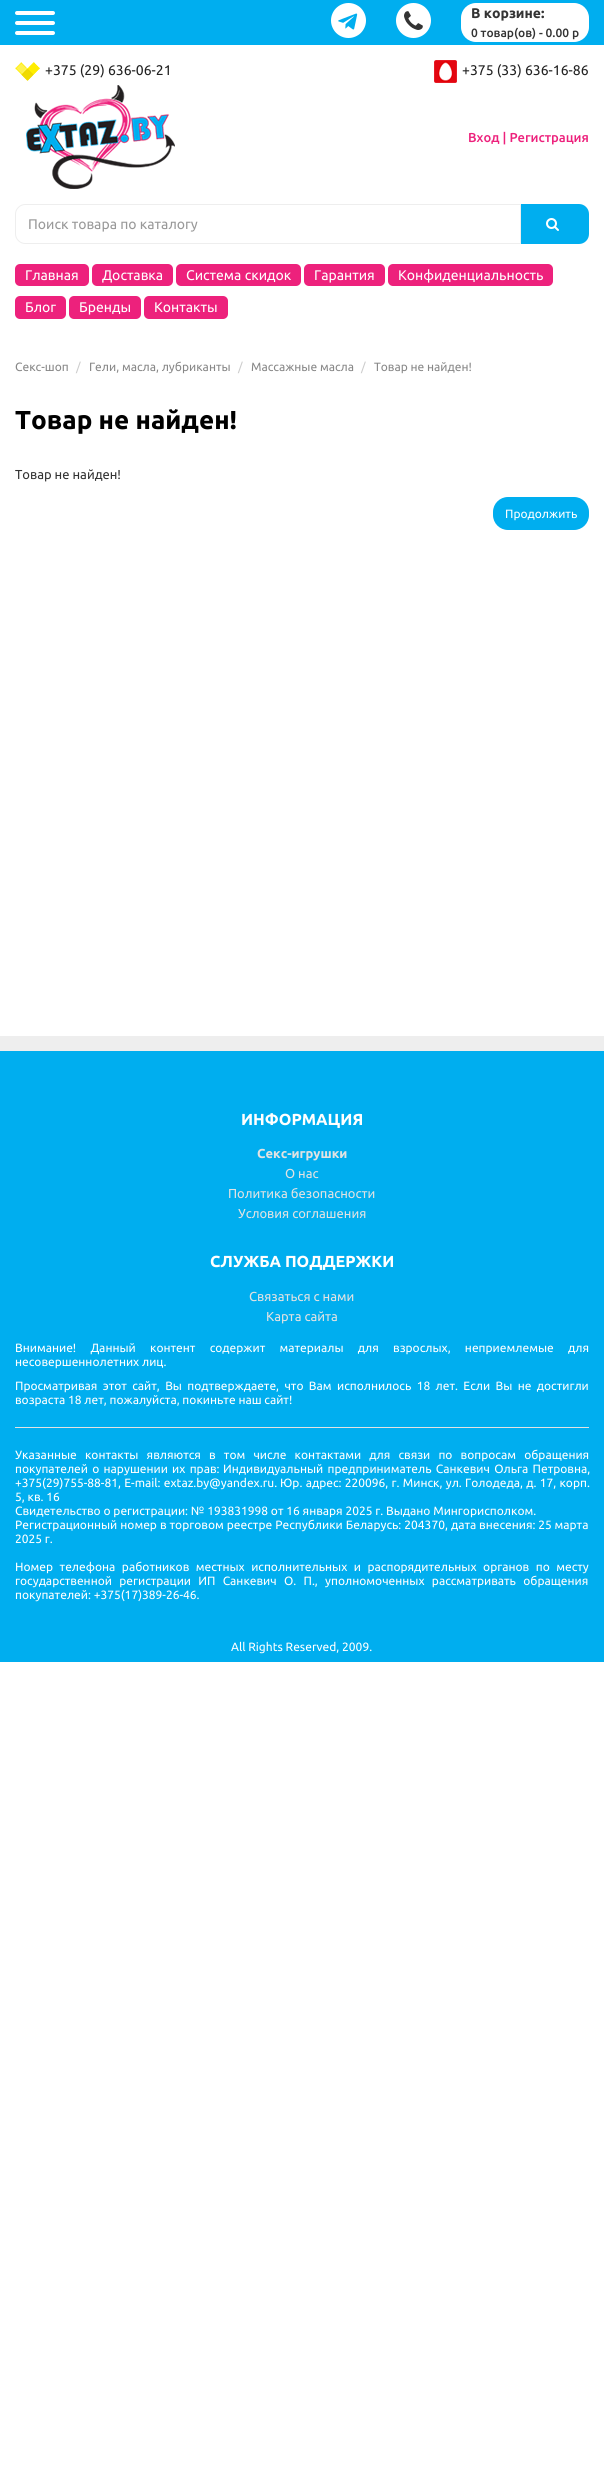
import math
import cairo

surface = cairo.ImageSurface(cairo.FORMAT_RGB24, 604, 2466)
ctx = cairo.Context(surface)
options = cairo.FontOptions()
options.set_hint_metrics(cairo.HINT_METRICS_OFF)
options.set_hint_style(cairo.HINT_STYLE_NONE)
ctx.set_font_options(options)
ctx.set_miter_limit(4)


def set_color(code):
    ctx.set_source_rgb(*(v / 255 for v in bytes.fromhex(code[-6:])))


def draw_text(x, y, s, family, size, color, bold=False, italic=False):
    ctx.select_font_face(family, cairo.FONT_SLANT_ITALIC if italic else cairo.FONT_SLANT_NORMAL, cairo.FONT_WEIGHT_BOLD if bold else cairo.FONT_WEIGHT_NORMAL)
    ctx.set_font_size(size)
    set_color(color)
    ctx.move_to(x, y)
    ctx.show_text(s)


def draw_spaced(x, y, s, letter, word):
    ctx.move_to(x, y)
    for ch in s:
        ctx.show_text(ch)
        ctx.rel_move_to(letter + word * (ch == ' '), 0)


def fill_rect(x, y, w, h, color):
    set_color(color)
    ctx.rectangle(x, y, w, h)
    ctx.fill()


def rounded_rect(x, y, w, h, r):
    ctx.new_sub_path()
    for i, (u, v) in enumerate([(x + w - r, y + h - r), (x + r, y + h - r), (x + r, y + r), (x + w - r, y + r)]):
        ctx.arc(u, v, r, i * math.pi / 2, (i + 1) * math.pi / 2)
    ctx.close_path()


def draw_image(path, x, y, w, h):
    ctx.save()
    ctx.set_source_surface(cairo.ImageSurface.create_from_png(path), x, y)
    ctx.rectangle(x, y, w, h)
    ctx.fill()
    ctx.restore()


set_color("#ffffff")
ctx.paint()
fill_rect(0, 0, 604, 45, "#00aeef")
set_color("#ffffff")
rounded_rect(15, 31, 40, 4, 2)
ctx.fill()
rounded_rect(15, 11, 40, 4, 2)
ctx.fill()
rounded_rect(15, 21, 40, 4, 2)
ctx.fill()
draw_image("assets/img1.png", 331, 3, 35, 35)
ctx.arc(413.5, 20.5, 17.5, 0, 2 * math.pi)
ctx.fill()
draw_image("assets/img2.png", 404, 11, 19, 19)
rounded_rect(461, 3, 128, 39, 15)
ctx.fill()
draw_text(471, 18, "В корзине:", "Ubuntu", 14, "#333333", bold=True)
draw_text(471, 37, "0 товар(ов) - 0.00 р", "Ubuntu Medium", 12, "#333333")
draw_image("assets/img3.png", 15, 62, 25, 19)
draw_text(45, 75, "+375 (29) 636-06-21", "Ubuntu", 14, "#222222")
draw_image("assets/img4.png", 434, 60, 23, 23)
draw_text(462, 75, "+375 (33) 636-16-86", "Ubuntu", 14, "#222222")
draw_image("assets/img5.png", 26, 85, 149, 104)
draw_text(468, 142, "Вход | Регистрация", "Ubuntu Medium", 13, "#ed217c")
ctx.new_path()
ctx.move_to(25, 204.5)
ctx.line_to(520.5, 204.5)
ctx.line_to(520.5, 243.5)
ctx.line_to(25, 243.5)
ctx.curve_to(20, 243.5, 15.5, 239, 15.5, 234)
ctx.line_to(15.5, 214)
ctx.curve_to(15.5, 209, 20, 204.5, 25, 204.5)
ctx.close_path()
set_color("#eeeeee")
ctx.set_line_width(1)
ctx.stroke()
draw_text(28, 229, "Поиск товара по каталогу", "Ubuntu", 14, "#999999")
set_color("#00aeef")
ctx.new_path()
ctx.move_to(521, 204)
ctx.line_to(579, 204)
ctx.curve_to(584.5, 204, 589, 208.5, 589, 214)
ctx.line_to(589, 234)
ctx.curve_to(589, 239.5, 584.5, 244, 579, 244)
ctx.line_to(521, 244)
ctx.close_path()
ctx.fill()
draw_image("assets/img6.png", 546, 218, 13, 13)
set_color("#ed217c")
rounded_rect(15, 264, 74, 22, 5)
ctx.fill()
draw_text(25, 280, "Главная", "Ubuntu", 14, "#ffffff")
set_color("#ed217c")
rounded_rect(92, 264, 81, 22, 5)
ctx.fill()
draw_text(102, 280, "Доставка", "Ubuntu", 14, "#ffffff")
set_color("#ed217c")
rounded_rect(176, 264, 125, 22, 5)
ctx.fill()
draw_text(186, 280, "Система скидок", "Ubuntu", 14, "#ffffff")
set_color("#ed217c")
rounded_rect(304, 264, 81, 22, 5)
ctx.fill()
draw_text(314, 280, "Гарантия", "Ubuntu", 14, "#ffffff")
set_color("#ed217c")
rounded_rect(388, 264, 165, 22, 5)
ctx.fill()
draw_text(398, 280, "Конфиденциальность", "Ubuntu", 14, "#ffffff")
set_color("#ed217c")
rounded_rect(15, 296, 51, 23, 5)
ctx.fill()
draw_text(25, 312, "Блог", "Ubuntu", 14, "#ffffff")
set_color("#ed217c")
rounded_rect(69, 296, 72, 23, 5)
ctx.fill()
draw_text(79, 312, "Бренды", "Ubuntu", 14, "#ffffff")
set_color("#ed217c")
rounded_rect(144, 296, 84, 23, 5)
ctx.fill()
draw_text(154, 312, "Контакты", "Ubuntu", 14, "#ffffff")
draw_text(15, 371, "Секс-шоп", "Ubuntu", 12, "#888888")
draw_text(76, 371, "/", "Ubuntu", 12, "#cccccc")
draw_text(89, 371, "Гели, масла, лубриканты", "Ubuntu", 12, "#888888")
draw_text(238, 371, "/", "Ubuntu", 12, "#cccccc")
draw_text(251, 371, "Массажные масла", "Ubuntu", 12, "#888888")
draw_text(361, 371, "/", "Ubuntu", 12, "#cccccc")
draw_text(374, 371, "Товар не найден!", "Ubuntu", 12, "#888888")
draw_text(15, 429, "Товар не найден!", "Ubuntu", 26, "#000000", bold=True)
draw_text(15, 479, "Товар не найден!", "Ubuntu", 13, "#333333")
set_color("#00aeef")
rounded_rect(493, 497, 96, 33, 15)
ctx.fill()
draw_text(505, 518, "Продолжить", "Ubuntu", 12, "#ffffff")
fill_rect(0, 1051, 604, 611, "#00aeef")
fill_rect(0, 1036, 604, 15, "#eeeeee")
draw_text(241, 1125, "ИНФОРМАЦИЯ", "Ubuntu", 16, "#ffffff", bold=True)
draw_text(257, 1158, "Секс-игрушки", "Ubuntu", 13, "#e2e2e2", bold=True)
draw_text(285, 1178, "О нас", "Ubuntu", 13, "#e2e2e2")
draw_text(228, 1198, "Политика безопасности", "Ubuntu", 13, "#e2e2e2")
draw_text(238, 1218, "Условия соглашения", "Ubuntu", 13, "#e2e2e2")
draw_text(210, 1267, "СЛУЖБА ПОДДЕРЖКИ", "Ubuntu", 16, "#ffffff", bold=True)
draw_text(249, 1301, "Связаться с нами", "Ubuntu", 13, "#e2e2e2")
draw_text(266, 1321, "Карта сайта", "Ubuntu", 13, "#e2e2e2")
ctx.set_font_size(12)
set_color("#ffffff")
draw_spaced(15, 1352, "Внимание! Данный контент содержит материалы для взрослых, неприемлемые для", 0, 11.5)
draw_text(15, 1366, "несовершеннолетних лиц.", "Ubuntu", 12, "#ffffff")
draw_spaced(15, 1390, "Просматривая этот сайт, Вы подтверждаете, что Вам исполнилось 18 лет. Если Вы не достигли", 0, 2.6)
draw_text(15, 1404, "возраста 18 лет, пожалуйста, покиньте наш сайт!", "Ubuntu", 12, "#ffffff")
fill_rect(15, 1427, 574, 1, "#e2e2e2")
set_color("#ffffff")
draw_spaced(15, 1459, "Указанные контакты являются в том числе контактами для связи по вопросам обращения", 0, 5.4)
draw_spaced(15, 1473, "покупателей о нарушении их прав:", 0, 1.5)
draw_spaced(223, 1473, "Индивидуальный предприниматель Санкевич Ольга Петровна,", 0, 1.5)
draw_spaced(15, 1487, "+375(29)755-88-81, E-mail: extaz.by@yandex.ru.", 0, 0.5)
draw_spaced(280, 1487, "Юр. адрес: 220096, г. Минск, ул. Голодеда, д. 17, корп.", 0, 0.5)
draw_text(15, 1501, "5, кв. 16", "Ubuntu", 12, "#ffffff")
draw_text(15, 1515, "Cвидетельство о регистрации: № 193831998 от 16 января 2025 г. Выдано Мингорисполком.", "Ubuntu", 12, "#ffffff")
draw_spaced(15, 1529, "Регистрационный номер в торговом реестре Республики Беларусь: 204370,", 0, 0.25)
draw_text(451, 1529, "дата внесения: 25 марта", "Ubuntu", 12, "#ffffff")
draw_text(15, 1543, "2025 г.", "Ubuntu", 12, "#ffffff")
draw_spaced(15, 1571, "Номер телефона работников местных исполнительных и распорядительных органов по месту", 0, 3.75)
draw_spaced(15, 1585, "государственной регистрации ИП Санкевич О. П., уполномоченных рассматривать обращения", 0, 4.5)
draw_text(15, 1599, "покупателей: +375(17)389-26-46.", "Ubuntu", 12, "#ffffff")
draw_text(231, 1651, "All Rights Reserved, 2009.", "Ubuntu", 12, "#ffffff")
surface.write_to_png("output.png")
